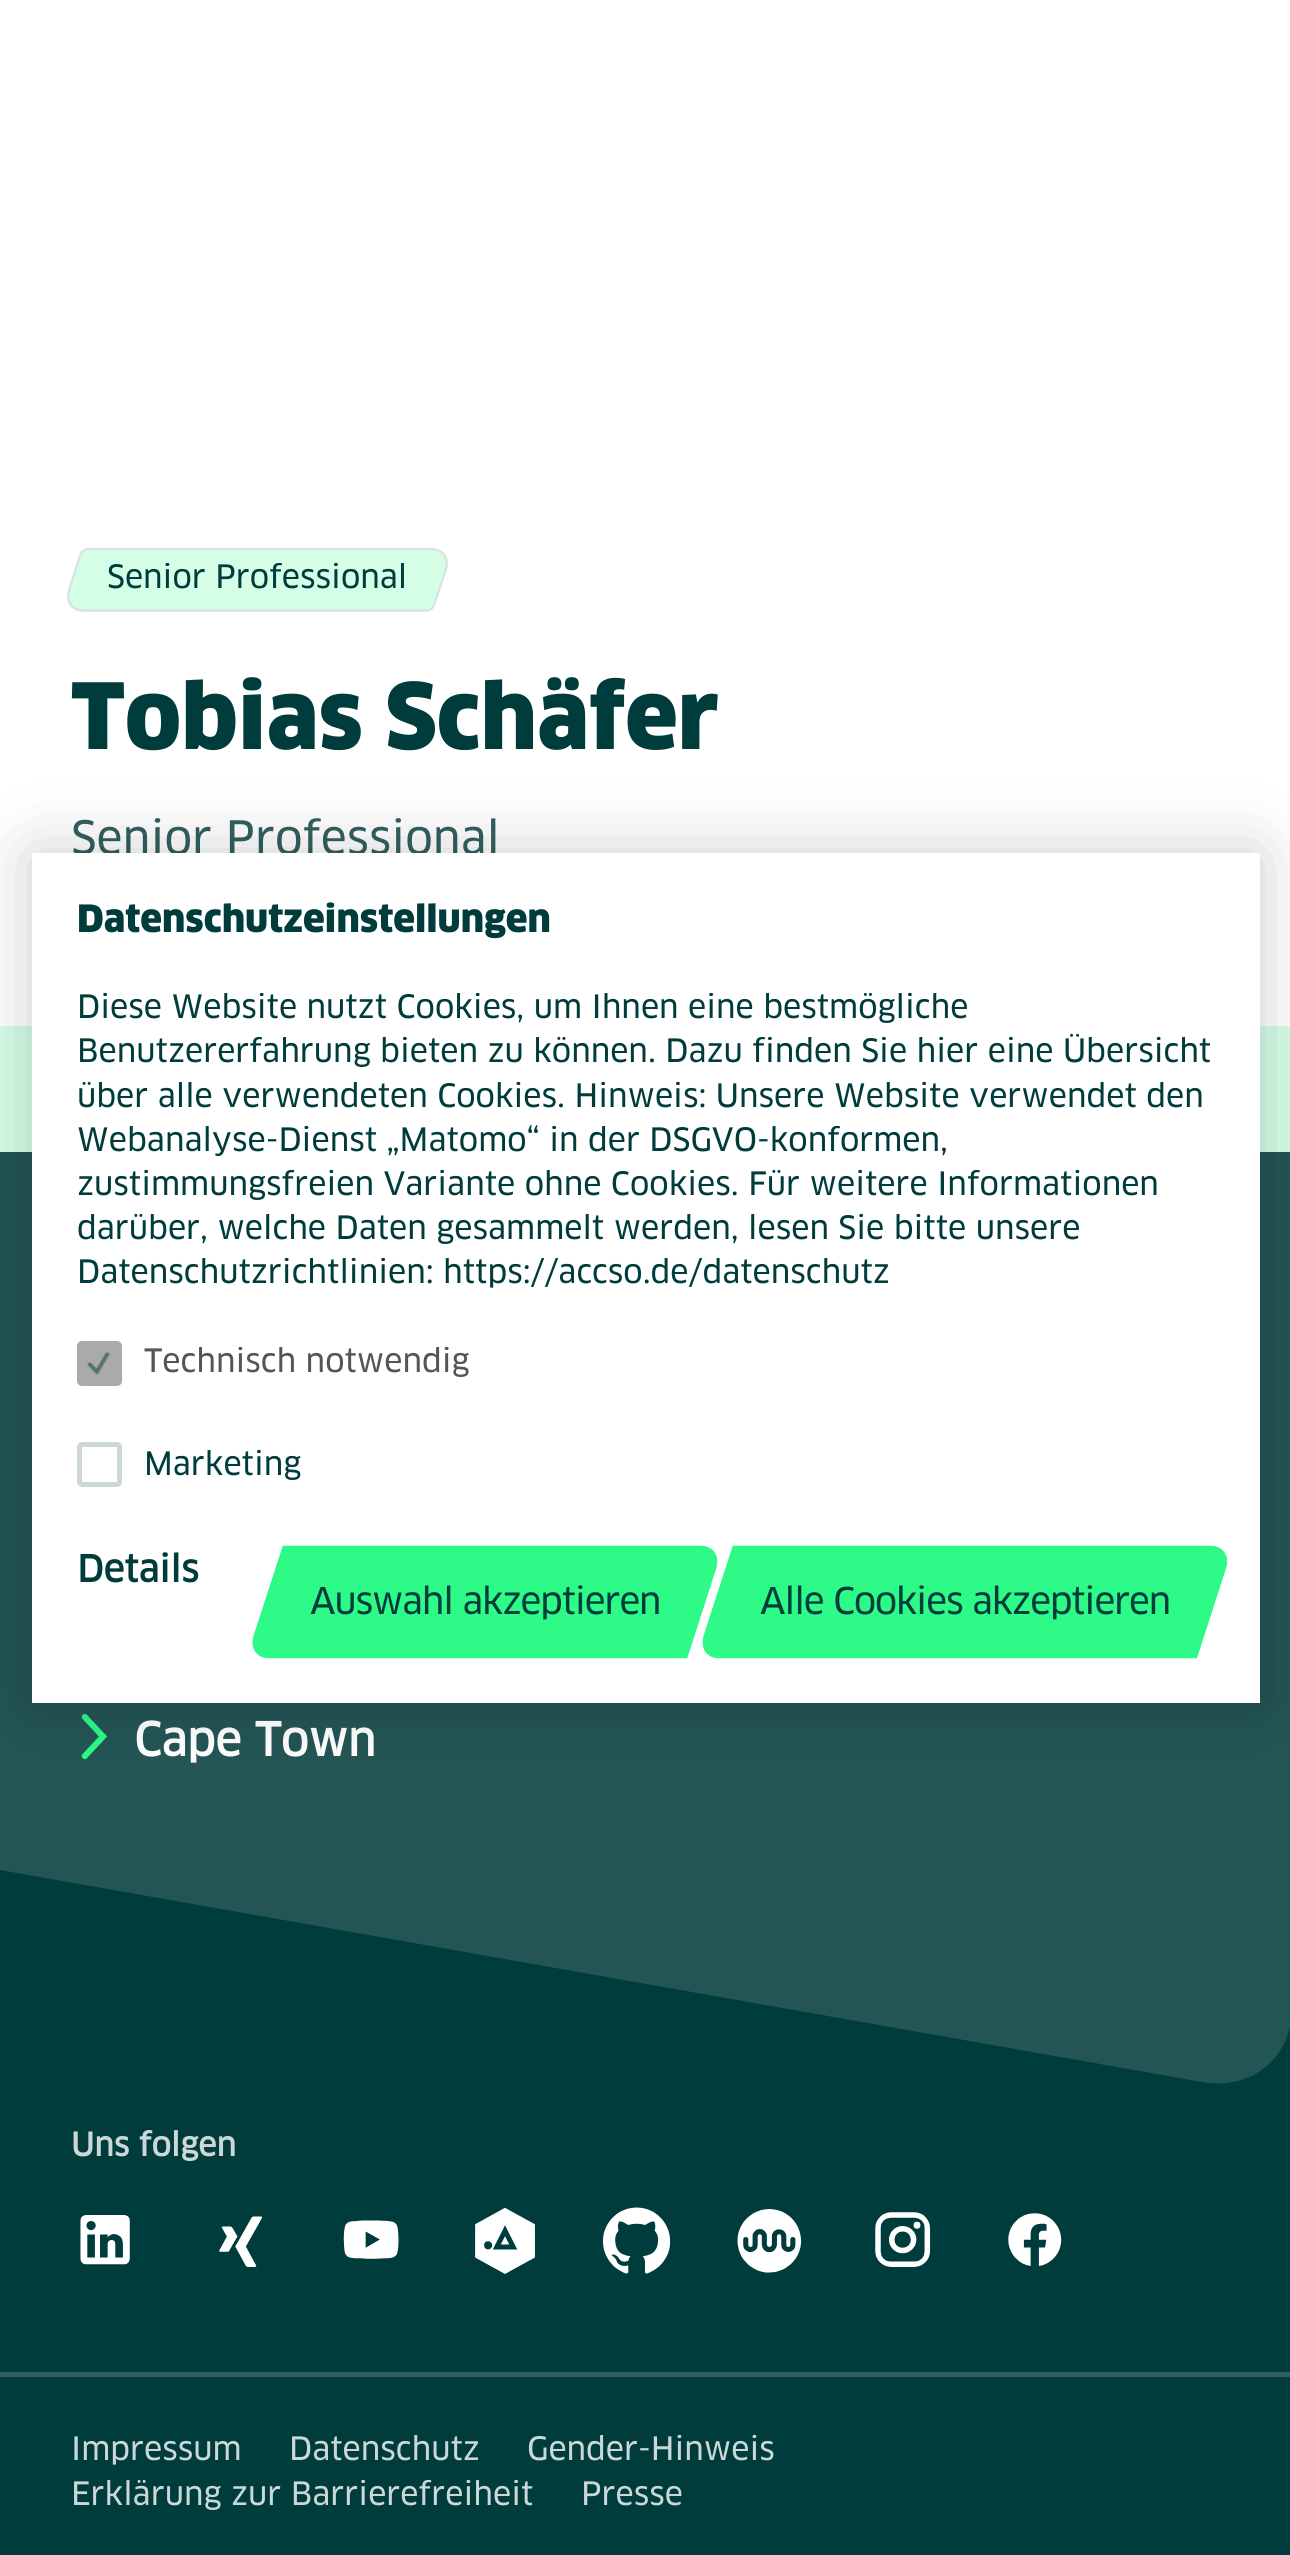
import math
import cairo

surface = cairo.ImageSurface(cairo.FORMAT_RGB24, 1290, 2555)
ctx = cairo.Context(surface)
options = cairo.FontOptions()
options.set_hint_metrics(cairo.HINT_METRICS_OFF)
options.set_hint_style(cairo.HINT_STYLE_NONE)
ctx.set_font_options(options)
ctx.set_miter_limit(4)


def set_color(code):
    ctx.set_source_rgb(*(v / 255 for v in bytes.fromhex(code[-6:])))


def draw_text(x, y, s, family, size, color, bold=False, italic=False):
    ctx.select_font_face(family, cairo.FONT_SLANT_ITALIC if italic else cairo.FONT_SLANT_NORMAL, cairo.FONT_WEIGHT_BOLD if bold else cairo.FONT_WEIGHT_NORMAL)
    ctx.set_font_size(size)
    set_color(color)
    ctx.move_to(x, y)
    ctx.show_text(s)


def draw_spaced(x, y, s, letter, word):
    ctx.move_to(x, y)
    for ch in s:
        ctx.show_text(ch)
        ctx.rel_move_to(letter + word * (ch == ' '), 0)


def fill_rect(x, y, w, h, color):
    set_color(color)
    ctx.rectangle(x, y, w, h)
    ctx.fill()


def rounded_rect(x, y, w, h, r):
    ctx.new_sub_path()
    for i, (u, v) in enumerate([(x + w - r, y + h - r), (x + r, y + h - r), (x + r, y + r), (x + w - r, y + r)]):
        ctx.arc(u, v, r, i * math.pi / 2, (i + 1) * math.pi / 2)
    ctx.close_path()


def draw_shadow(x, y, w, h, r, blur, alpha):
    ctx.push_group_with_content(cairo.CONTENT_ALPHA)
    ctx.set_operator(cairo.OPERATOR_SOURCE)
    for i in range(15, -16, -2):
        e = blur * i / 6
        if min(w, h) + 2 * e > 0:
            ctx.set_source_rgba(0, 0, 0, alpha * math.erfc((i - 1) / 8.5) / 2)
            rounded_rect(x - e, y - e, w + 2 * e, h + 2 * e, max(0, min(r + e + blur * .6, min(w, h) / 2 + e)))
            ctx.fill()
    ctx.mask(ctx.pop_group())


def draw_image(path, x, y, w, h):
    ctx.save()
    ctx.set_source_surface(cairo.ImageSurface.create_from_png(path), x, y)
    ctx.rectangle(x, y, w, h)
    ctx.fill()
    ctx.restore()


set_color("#ffffff")
ctx.paint()
set_color("#d5fee7")
ctx.new_path()
ctx.move_to(88, 548)
ctx.line_to(431, 548)
ctx.curve_to(444, 548, 451, 558, 447, 570)
ctx.line_to(435, 605)
ctx.curve_to(434, 609, 430, 612, 426, 612)
ctx.line_to(83, 612)
ctx.curve_to(71, 612, 64, 602, 68, 589)
ctx.line_to(79, 555)
ctx.curve_to(81, 551, 85, 548, 88, 548)
ctx.close_path()
ctx.fill()
ctx.new_path()
ctx.move_to(88, 549)
ctx.line_to(431, 549)
ctx.curve_to(443, 549, 449.5, 558.5, 445.5, 570.5)
ctx.line_to(434, 605)
ctx.curve_to(433, 608, 430, 610.5, 426.5, 610.5)
ctx.line_to(83.5, 610.5)
ctx.curve_to(72, 610.5, 65.5, 601, 69.5, 589.5)
ctx.line_to(80.5, 554.5)
ctx.curve_to(81.5, 551.5, 85, 549, 88, 549)
ctx.close_path()
set_color("#d9e2e2")
ctx.set_line_width(2.2)
ctx.stroke()
draw_text(107, 588, "Senior Professional", "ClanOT", 31.5, "#003c3c")
draw_text(71, 749, "Tobias Schäfer", "ClanOT Black", 89, "#003c3c")
draw_text(71, 854, "Senior Professional", "ClanOT", 45, "#335f5f")
fill_rect(0, 1026, 1290, 126, "#d5fee7")
fill_rect(0, 1870, 1290, 685, "#003c3c")
ctx.save()
ctx.rectangle(0, 1152, 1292, 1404)
ctx.clip()
set_color("#245555")
ctx.new_path()
ctx.move_to(0, 835)
ctx.line_to(1202, 1047)
ctx.curve_to(1251, 1056, 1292, 1104, 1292, 1153)
ctx.line_to(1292, 2008)
ctx.curve_to(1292, 2058, 1251, 2091, 1202, 2082)
ctx.line_to(0, 1870)
ctx.close_path()
ctx.fill()
ctx.restore()
draw_image("assets/img1.png", 81, 1714, 26, 45)
draw_text(134, 1756, "Cape Town", "ClanOT", 45, "#ffffff", bold=True)
draw_text(71, 2156, "Uns folgen", "ClanOT", 31.5, "#ccd8d8", bold=True)
draw_image("assets/img2.png", 80, 2215, 50, 50)
draw_image("assets/img3.png", 219, 2216, 44, 51)
draw_image("assets/img4.png", 343, 2220, 56, 39)
draw_image("assets/img5.png", 475, 2207, 60, 67)
draw_image("assets/img6.png", 603, 2207, 68, 67)
draw_image("assets/img7.png", 737, 2209, 65, 64)
draw_image("assets/img8.png", 875, 2212, 56, 55)
draw_image("assets/img9.png", 1008, 2213, 54, 53)
fill_rect(0, 2372, 1290, 5, "#335f5f")
draw_text(71, 2460, "Impressum", "ClanOT", 31.5, "#ccd8d8")
draw_text(289, 2460, "Datenschutz", "ClanOT", 31.5, "#ccd8d8")
draw_text(527, 2460, "Gender-Hinweis", "ClanOT", 31.5, "#ccd8d8")
draw_text(71, 2505, "Erklärung zur Barrierefreiheit", "ClanOT", 31.5, "#ccd8d8")
draw_text(581, 2505, "Presse", "ClanOT", 31.5, "#ccd8d8")
set_color("#000000")
draw_shadow(32, 853, 1228, 850, 0, 34, 0.2)
fill_rect(32, 853, 1228, 850, "#ffffff")
draw_text(77, 932, "Datenschutzeinstellungen", "ClanOT Black", 36.75, "#003c3c")
draw_text(77, 1018, "Diese Website nutzt Cookies, um Ihnen eine bestmögliche", "ClanOT", 31.5, "#003c3c")
draw_text(77, 1062, "Benutzererfahrung bieten zu können. Dazu finden Sie hier eine Übersicht", "ClanOT", 31.5, "#003c3c")
draw_text(77, 1107, "über alle verwendeten Cookies. Hinweis: Unsere Website verwendet den", "ClanOT", 31.5, "#003c3c")
draw_text(77, 1151, "Webanalyse-Dienst „Matomo“ in der DSGVO-konformen,", "ClanOT", 31.5, "#003c3c")
draw_text(77, 1195, "zustimmungsfreien Variante ohne Cookies. Für weitere Informationen", "ClanOT", 31.5, "#003c3c")
draw_text(77, 1239, "darüber, welche Daten gesammelt werden, lesen Sie bitte unsere", "ClanOT", 31.5, "#003c3c")
draw_text(77, 1283, "Datenschutzrichtlinien: https://accso.de/datenschutz", "ClanOT", 31.5, "#003c3c")
set_color("#aaaaaa")
rounded_rect(79.5, 1343.5, 40, 40, 2.5)
ctx.fill_preserve()
ctx.set_line_width(5)
ctx.stroke()
draw_image("assets/img10.png", 87, 1352, 23, 23)
draw_text(144, 1372, "Technisch notwendig", "ClanOT", 31.5, "#555555")
rounded_rect(79.5, 1444.5, 40, 40, 2.5)
set_color("#cbd7d8")
ctx.stroke()
draw_text(144, 1475, "Marketing", "ClanOT", 31.5, "#003c3c")
draw_text(77, 1582, "Details", "ClanOT", 36, "#003c3c", bold=True)
set_color("#2dfa87")
ctx.new_path()
ctx.move_to(283, 1546)
ctx.line_to(701, 1546)
ctx.curve_to(713, 1546, 720, 1556, 716, 1568)
ctx.line_to(687, 1658)
ctx.line_to(269, 1658)
ctx.curve_to(256, 1658, 250, 1648, 254, 1636)
ctx.close_path()
ctx.fill()
ctx.new_path()
ctx.move_to(284.5, 1548)
ctx.line_to(700, 1548)
ctx.curve_to(711.5, 1548, 717.5, 1557, 714, 1568)
ctx.line_to(685.5, 1656)
ctx.line_to(269.5, 1656)
ctx.curve_to(258.5, 1656, 252, 1647, 256, 1635.5)
ctx.close_path()
ctx.set_line_width(4.5)
ctx.stroke()
ctx.select_font_face("ClanOT")
set_color("#003c3c")
draw_spaced(310, 1614, "Auswahl akzeptieren", -1.1, 0)
set_color("#2dfa87")
ctx.new_path()
ctx.move_to(733, 1546)
ctx.line_to(1211, 1546)
ctx.curve_to(1223, 1546, 1230, 1556, 1226, 1568)
ctx.line_to(1197, 1658)
ctx.line_to(719, 1658)
ctx.curve_to(706, 1658, 700, 1648, 704, 1636)
ctx.close_path()
ctx.fill()
ctx.new_path()
ctx.move_to(734.5, 1548)
ctx.line_to(1210, 1548)
ctx.curve_to(1221, 1548, 1227.5, 1557, 1223.5, 1568)
ctx.line_to(1195, 1656)
ctx.line_to(719.5, 1656)
ctx.curve_to(708.5, 1656, 702.5, 1647, 706, 1635.5)
ctx.close_path()
ctx.stroke()
set_color("#003c3c")
draw_spaced(760, 1614, "Alle Cookies akzeptieren", -1.1, 0)
surface.write_to_png("output.png")
